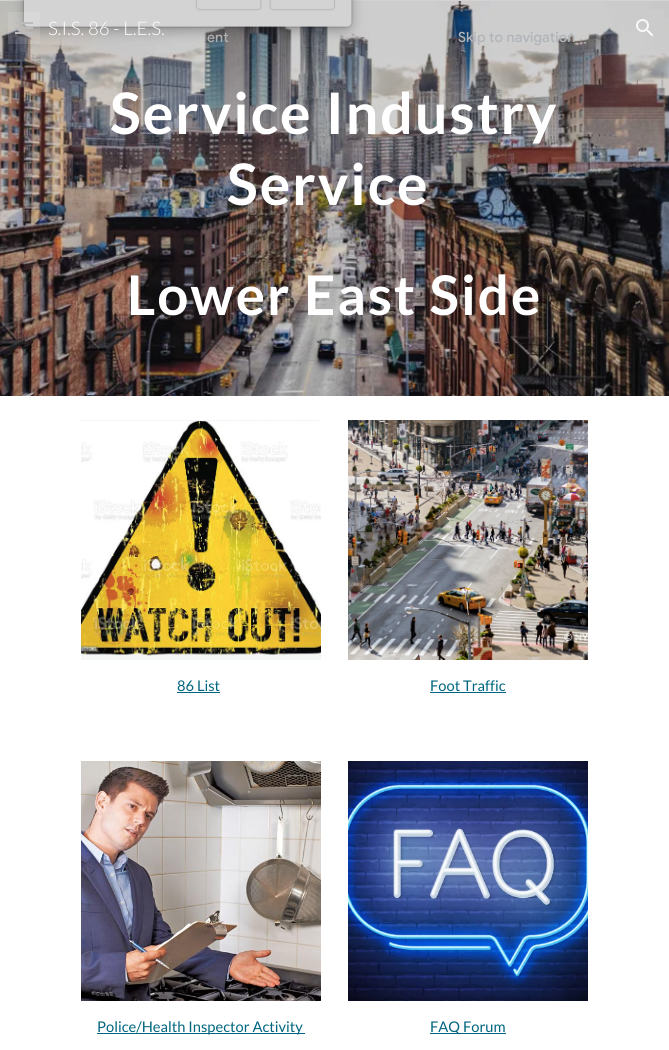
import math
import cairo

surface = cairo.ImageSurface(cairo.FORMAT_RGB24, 669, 1050)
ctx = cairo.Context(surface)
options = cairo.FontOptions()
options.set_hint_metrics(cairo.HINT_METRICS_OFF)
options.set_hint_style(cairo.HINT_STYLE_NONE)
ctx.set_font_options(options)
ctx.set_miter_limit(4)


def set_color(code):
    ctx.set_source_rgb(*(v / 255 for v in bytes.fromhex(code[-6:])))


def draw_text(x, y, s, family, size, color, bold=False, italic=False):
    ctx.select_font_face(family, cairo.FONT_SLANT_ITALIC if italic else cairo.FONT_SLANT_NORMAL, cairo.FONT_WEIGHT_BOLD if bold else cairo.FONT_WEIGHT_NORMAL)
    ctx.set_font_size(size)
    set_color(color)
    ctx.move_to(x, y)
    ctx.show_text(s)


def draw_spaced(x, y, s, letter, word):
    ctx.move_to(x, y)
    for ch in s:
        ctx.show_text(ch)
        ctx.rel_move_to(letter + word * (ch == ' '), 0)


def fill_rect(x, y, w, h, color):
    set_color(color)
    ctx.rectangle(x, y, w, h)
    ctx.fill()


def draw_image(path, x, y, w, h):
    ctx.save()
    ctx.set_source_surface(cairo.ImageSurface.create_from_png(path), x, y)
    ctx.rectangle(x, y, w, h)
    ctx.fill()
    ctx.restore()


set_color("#ffffff")
ctx.paint()
draw_image("assets/img2.png", 0, 0, 669, 396)
fill_rect(15, 22, 18, 2, "#b2b2b2")
fill_rect(15, 27, 18, 2, "#b2b2b2")
fill_rect(15, 32, 18, 2, "#b2b2b2")
ctx.set_source_rgba(1, 1, 1, 0.12)
ctx.rectangle(8, 12, 32, 32)
ctx.fill()
draw_text(48, 35, "S.I.S. 86 - L.E.S.", "Lato Light", 18.75, "#ffffff")
draw_image("assets/img1.png", 636, 19, 18, 18)
ctx.select_font_face("Lato", cairo.FONT_SLANT_NORMAL, cairo.FONT_WEIGHT_BOLD)
ctx.set_font_size(57.25)
draw_spaced(110, 134, "Service Industry", 2, 0)
draw_spaced(227, 205, "Service", 2, 0)
ctx.set_font_size(54.75)
draw_spaced(127, 315, "Lower East Side", 2, 0)
draw_image("assets/img3.png", 81, 420, 240, 240)
draw_text(177, 691, "86 List", "Lato", 14.7, "#006580")
fill_rect(177, 692, 43, 1, "#006580")
draw_image("assets/img4.png", 348, 420, 240, 240)
draw_text(430, 691, "Foot Traffic", "Lato", 14.7, "#006580")
fill_rect(430, 692, 76, 1, "#006580")
draw_image("assets/img5.png", 81, 761, 240, 240)
fill_rect(97, 1033, 208, 1, "#006580")
draw_text(97, 1032, "Police/Health Inspector Activity", "Lato", 14.7, "#006580")
draw_image("assets/img6.png", 348, 761, 240, 240)
fill_rect(430, 1033, 76, 1, "#006580")
draw_text(430, 1032, "FAQ Forum", "Lato", 14.7, "#006580")
ctx.select_font_face("Google Sans Medium")
ctx.set_font_size(14)
set_color("#afb0b0")
draw_spaced(207, 42, "ent", 0.1, 0)
set_color("#b0b4b9")
draw_spaced(458, 42, "Skip to navigation", 0.1, 0)
surface.write_to_png("output.png")
